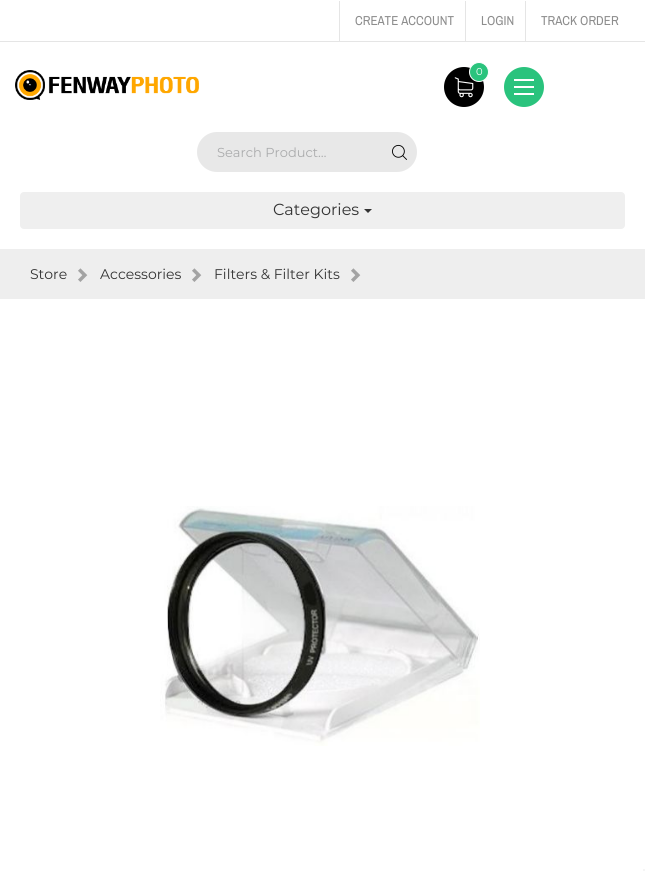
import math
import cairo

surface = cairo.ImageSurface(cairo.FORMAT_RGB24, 645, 871)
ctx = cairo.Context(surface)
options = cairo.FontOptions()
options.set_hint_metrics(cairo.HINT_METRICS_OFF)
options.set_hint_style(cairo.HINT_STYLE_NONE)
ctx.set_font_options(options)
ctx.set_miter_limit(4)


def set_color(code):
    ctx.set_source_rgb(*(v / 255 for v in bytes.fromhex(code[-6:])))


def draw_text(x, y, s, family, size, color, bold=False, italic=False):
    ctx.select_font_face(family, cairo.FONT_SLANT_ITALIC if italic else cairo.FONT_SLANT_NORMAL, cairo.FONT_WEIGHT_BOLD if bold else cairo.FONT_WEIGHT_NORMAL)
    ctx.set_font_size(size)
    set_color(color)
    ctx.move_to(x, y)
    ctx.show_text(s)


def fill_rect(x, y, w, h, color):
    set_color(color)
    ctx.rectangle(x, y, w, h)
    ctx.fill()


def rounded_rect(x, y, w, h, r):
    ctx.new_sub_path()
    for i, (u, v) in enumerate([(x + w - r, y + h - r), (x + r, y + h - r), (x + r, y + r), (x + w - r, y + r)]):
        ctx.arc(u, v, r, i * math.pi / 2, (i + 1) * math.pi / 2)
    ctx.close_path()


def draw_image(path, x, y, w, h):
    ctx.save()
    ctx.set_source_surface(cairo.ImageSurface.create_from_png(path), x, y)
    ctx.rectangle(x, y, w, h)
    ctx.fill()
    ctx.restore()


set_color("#ffffff")
ctx.paint()
fill_rect(0, 41, 645, 1, "#e5e5e5")
fill_rect(339, 1, 1, 40, "#e5e5e5")
draw_text(355, 25, "CREATE ACCOUNT", "Archivo Narrow", 13, "#8d8d8d")
fill_rect(465, 1, 1, 40, "#e5e5e5")
draw_text(481, 25, "LOGIN", "Archivo Narrow", 13, "#8d8d8d")
fill_rect(525, 1, 1, 40, "#e5e5e5")
draw_text(541, 25, "TRACK ORDER", "Archivo Narrow", 13, "#8d8d8d")
draw_image("assets/img1.png", 15, 70, 184, 30)
set_color("#000000")
ctx.arc(464, 87, 20, 0, 2 * math.pi)
ctx.fill()
set_color("#2ac37d")
ctx.arc(479, 72, 9.5, 0, 2 * math.pi)
ctx.fill_preserve()
set_color("#ffffff")
ctx.set_line_width(1)
ctx.stroke()
draw_text(476, 75, "0", "Montserrat", 10, "#ffffff")
draw_image("assets/img2.png", 454, 77, 20, 21)
set_color("#2ac37d")
ctx.arc(524, 87, 20, 0, 2 * math.pi)
ctx.fill()
fill_rect(514, 79, 20, 2, "#ffffff")
fill_rect(514, 86, 20, 2, "#ffffff")
fill_rect(514, 93, 20, 2, "#ffffff")
set_color("#e8e8e8")
rounded_rect(197, 132, 220, 40, 20)
ctx.fill()
draw_text(217, 157, "Search Product…", "Montserrat", 13, "#aaabac")
draw_image("assets/img3.png", 392, 144, 15, 16)
set_color("#efefef")
rounded_rect(20, 192, 605, 37, 4)
ctx.fill()
draw_text(273, 215, "Categories", "Montserrat", 16, "#333333")
ctx.new_path()
ctx.move_to(364, 209)
ctx.line_to(372, 209)
ctx.line_to(368, 213)
ctx.close_path()
ctx.fill()
fill_rect(0, 249, 645, 50, "#eeeeee")
draw_text(30, 279, "Store", "Montserrat", 14, "#333333")
draw_image("assets/img4.png", 78, 268, 10, 14)
draw_text(100, 279, "Accessories", "Montserrat", 14, "#333333")
draw_image("assets/img4.png", 192, 268, 10, 14)
draw_text(214, 279, "Filters & Filter Kits", "Montserrat", 14, "#333333")
draw_image("assets/img4.png", 351, 268, 10, 14)
draw_image("assets/img5.png", 160, 506, 320, 240)
fill_rect(643, 869, 2, 2, "#f5f5f5")
surface.write_to_png("output.png")
